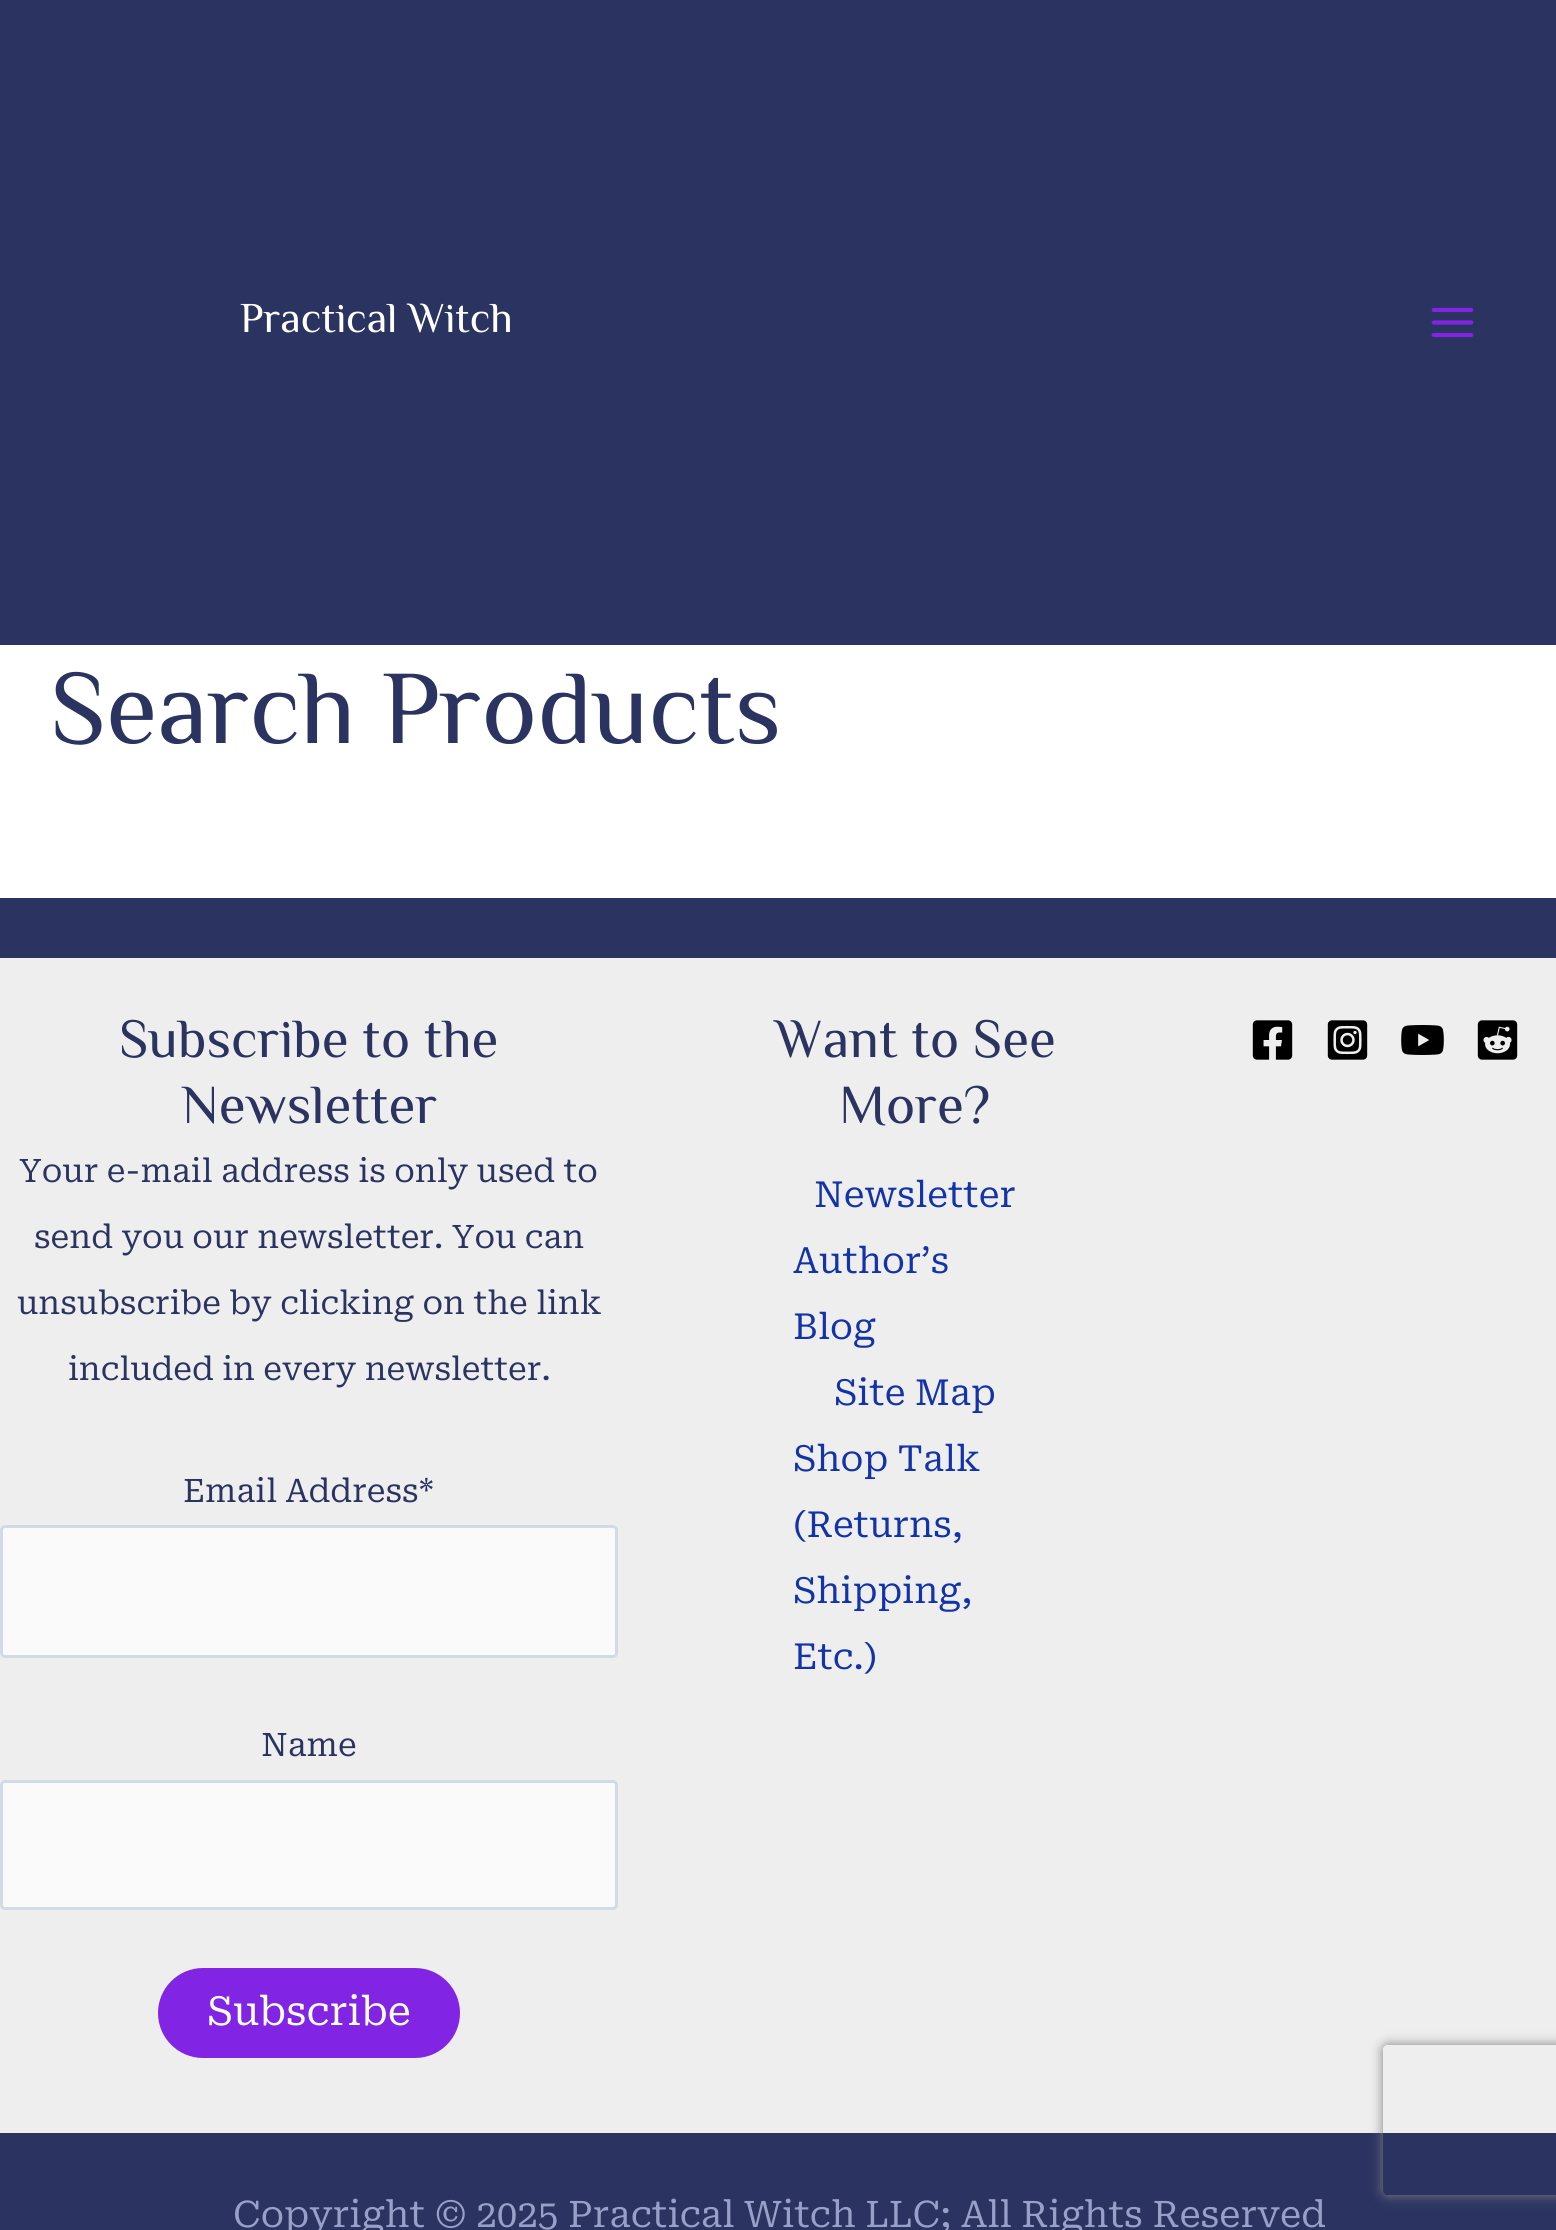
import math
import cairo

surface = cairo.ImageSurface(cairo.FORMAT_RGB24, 1556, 2230)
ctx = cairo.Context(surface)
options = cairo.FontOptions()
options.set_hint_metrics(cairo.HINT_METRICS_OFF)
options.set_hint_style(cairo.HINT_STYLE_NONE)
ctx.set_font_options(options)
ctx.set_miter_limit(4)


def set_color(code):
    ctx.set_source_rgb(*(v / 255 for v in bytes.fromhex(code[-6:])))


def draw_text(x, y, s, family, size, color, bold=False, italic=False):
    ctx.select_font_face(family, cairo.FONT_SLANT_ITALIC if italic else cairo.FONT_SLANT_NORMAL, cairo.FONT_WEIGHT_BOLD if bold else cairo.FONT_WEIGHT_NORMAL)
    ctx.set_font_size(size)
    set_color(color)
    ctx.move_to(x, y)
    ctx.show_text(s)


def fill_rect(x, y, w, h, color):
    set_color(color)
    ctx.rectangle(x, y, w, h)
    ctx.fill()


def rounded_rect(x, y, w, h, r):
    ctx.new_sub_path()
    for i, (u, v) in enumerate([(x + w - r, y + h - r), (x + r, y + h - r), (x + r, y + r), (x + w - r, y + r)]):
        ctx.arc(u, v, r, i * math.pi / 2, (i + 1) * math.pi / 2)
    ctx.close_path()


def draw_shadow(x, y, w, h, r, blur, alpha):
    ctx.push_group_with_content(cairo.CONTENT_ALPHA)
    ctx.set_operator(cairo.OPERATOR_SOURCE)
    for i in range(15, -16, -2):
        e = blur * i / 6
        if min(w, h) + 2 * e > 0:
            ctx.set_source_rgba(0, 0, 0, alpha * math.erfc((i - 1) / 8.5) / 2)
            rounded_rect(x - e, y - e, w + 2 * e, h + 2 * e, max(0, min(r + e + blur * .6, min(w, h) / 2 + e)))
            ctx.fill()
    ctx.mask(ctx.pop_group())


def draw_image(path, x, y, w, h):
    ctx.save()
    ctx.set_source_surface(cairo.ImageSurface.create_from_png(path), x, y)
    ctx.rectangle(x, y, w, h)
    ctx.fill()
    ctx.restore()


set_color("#ffffff")
ctx.paint()
fill_rect(0, 0, 1556, 645, "#2b3361")
draw_text(240, 332, "Practical Witch", "Philosopher", 42.5, "#ffffff")
draw_image("assets/img1.png", 1431, 307, 43, 31)
draw_text(50, 743, "Search Products", "Philosopher", 105, "#2b3361")
fill_rect(0, 958, 1556, 1175, "#eeeeee")
fill_rect(0, 898, 1556, 60, "#2b3361")
draw_text(119, 1057, "Subscribe to the", "Philosopher", 55, "#2b3361")
draw_text(181, 1123, "Newsletter", "Philosopher", 55, "#2b3361")
draw_text(19, 1182, "Your e-mail address is only used to", "Roboto Serif", 32.4, "#2b3361")
draw_text(34, 1248, "send you our newsletter. You can", "Roboto Serif", 32.4, "#2b3361")
draw_text(17, 1314, "unsubscribe by clicking on the link", "Roboto Serif", 32.4, "#2b3361")
draw_text(68, 1380, "included in every newsletter.", "Roboto Serif", 32.4, "#2b3361")
draw_text(183, 1502, "Email Address*", "Roboto Serif", 32.4, "#2b3361")
set_color("#fafafa")
rounded_rect(1.5, 1526.5, 615, 130, 3.5)
ctx.fill_preserve()
set_color("#d1dae5")
ctx.set_line_width(3)
ctx.stroke()
draw_text(261, 1756, "Name", "Roboto Serif", 32.4, "#2b3361")
set_color("#fafafa")
rounded_rect(1.5, 1781.5, 615, 127, 3.5)
ctx.fill_preserve()
set_color("#d1dae5")
ctx.stroke()
set_color("#8224e3")
rounded_rect(158, 1968, 302, 90, 45)
ctx.fill()
draw_text(207, 2025, "Subscribe", "Roboto Serif", 40, "#ffffff")
fill_rect(0, 2133, 1556, 97, "#2b3361")
ctx.save()
ctx.set_fill_rule(cairo.FILL_RULE_EVEN_ODD)
ctx.new_path()
ctx.move_to(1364, 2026)
ctx.line_to(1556, 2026)
ctx.line_to(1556, 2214)
ctx.line_to(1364, 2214)
ctx.close_path()
ctx.move_to(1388, 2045)
ctx.line_to(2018, 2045)
ctx.curve_to(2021, 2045, 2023, 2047, 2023, 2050)
ctx.line_to(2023, 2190)
ctx.curve_to(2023, 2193, 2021, 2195, 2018, 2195)
ctx.line_to(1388, 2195)
ctx.curve_to(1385, 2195, 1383, 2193, 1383, 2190)
ctx.line_to(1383, 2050)
ctx.curve_to(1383, 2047, 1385, 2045, 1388, 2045)
ctx.close_path()
ctx.clip()
set_color("#808080")
draw_shadow(1383, 2045, 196, 150, 5, 6, 1)
ctx.restore()
draw_text(775, 1057, "Want to See", "Philosopher", 55, "#2b3361")
draw_text(839, 1123, "More?", "Philosopher", 55, "#2b3361")
draw_text(814, 1207, "Newsletter", "Roboto Serif", 36, "#1333a6")
draw_text(793, 1273, "Author’s", "Roboto Serif", 36, "#1333a6")
draw_text(793, 1339, "Blog", "Roboto Serif", 36, "#1333a6")
draw_text(834, 1405, "Site Map", "Roboto Serif", 36, "#1333a6")
draw_text(793, 1471, "Shop Talk", "Roboto Serif", 36, "#1333a6")
draw_text(793, 1537, "(Returns,", "Roboto Serif", 36, "#1333a6")
draw_text(793, 1603, "Shipping,", "Roboto Serif", 36, "#1333a6")
draw_text(793, 1669, "Etc.)", "Roboto Serif", 36, "#1333a6")
draw_image("assets/img2.png", 1252, 1020, 41, 40)
draw_image("assets/img3.png", 1327, 1020, 41, 40)
draw_image("assets/img4.png", 1401, 1025, 43, 30)
draw_image("assets/img5.png", 1477, 1020, 41, 40)
draw_text(233, 2227, "Copyright © 2025 Practical Witch LLC; All Rights Reserved", "Roboto Serif", 36.7, "#99a0c7")
surface.write_to_png("output.png")
